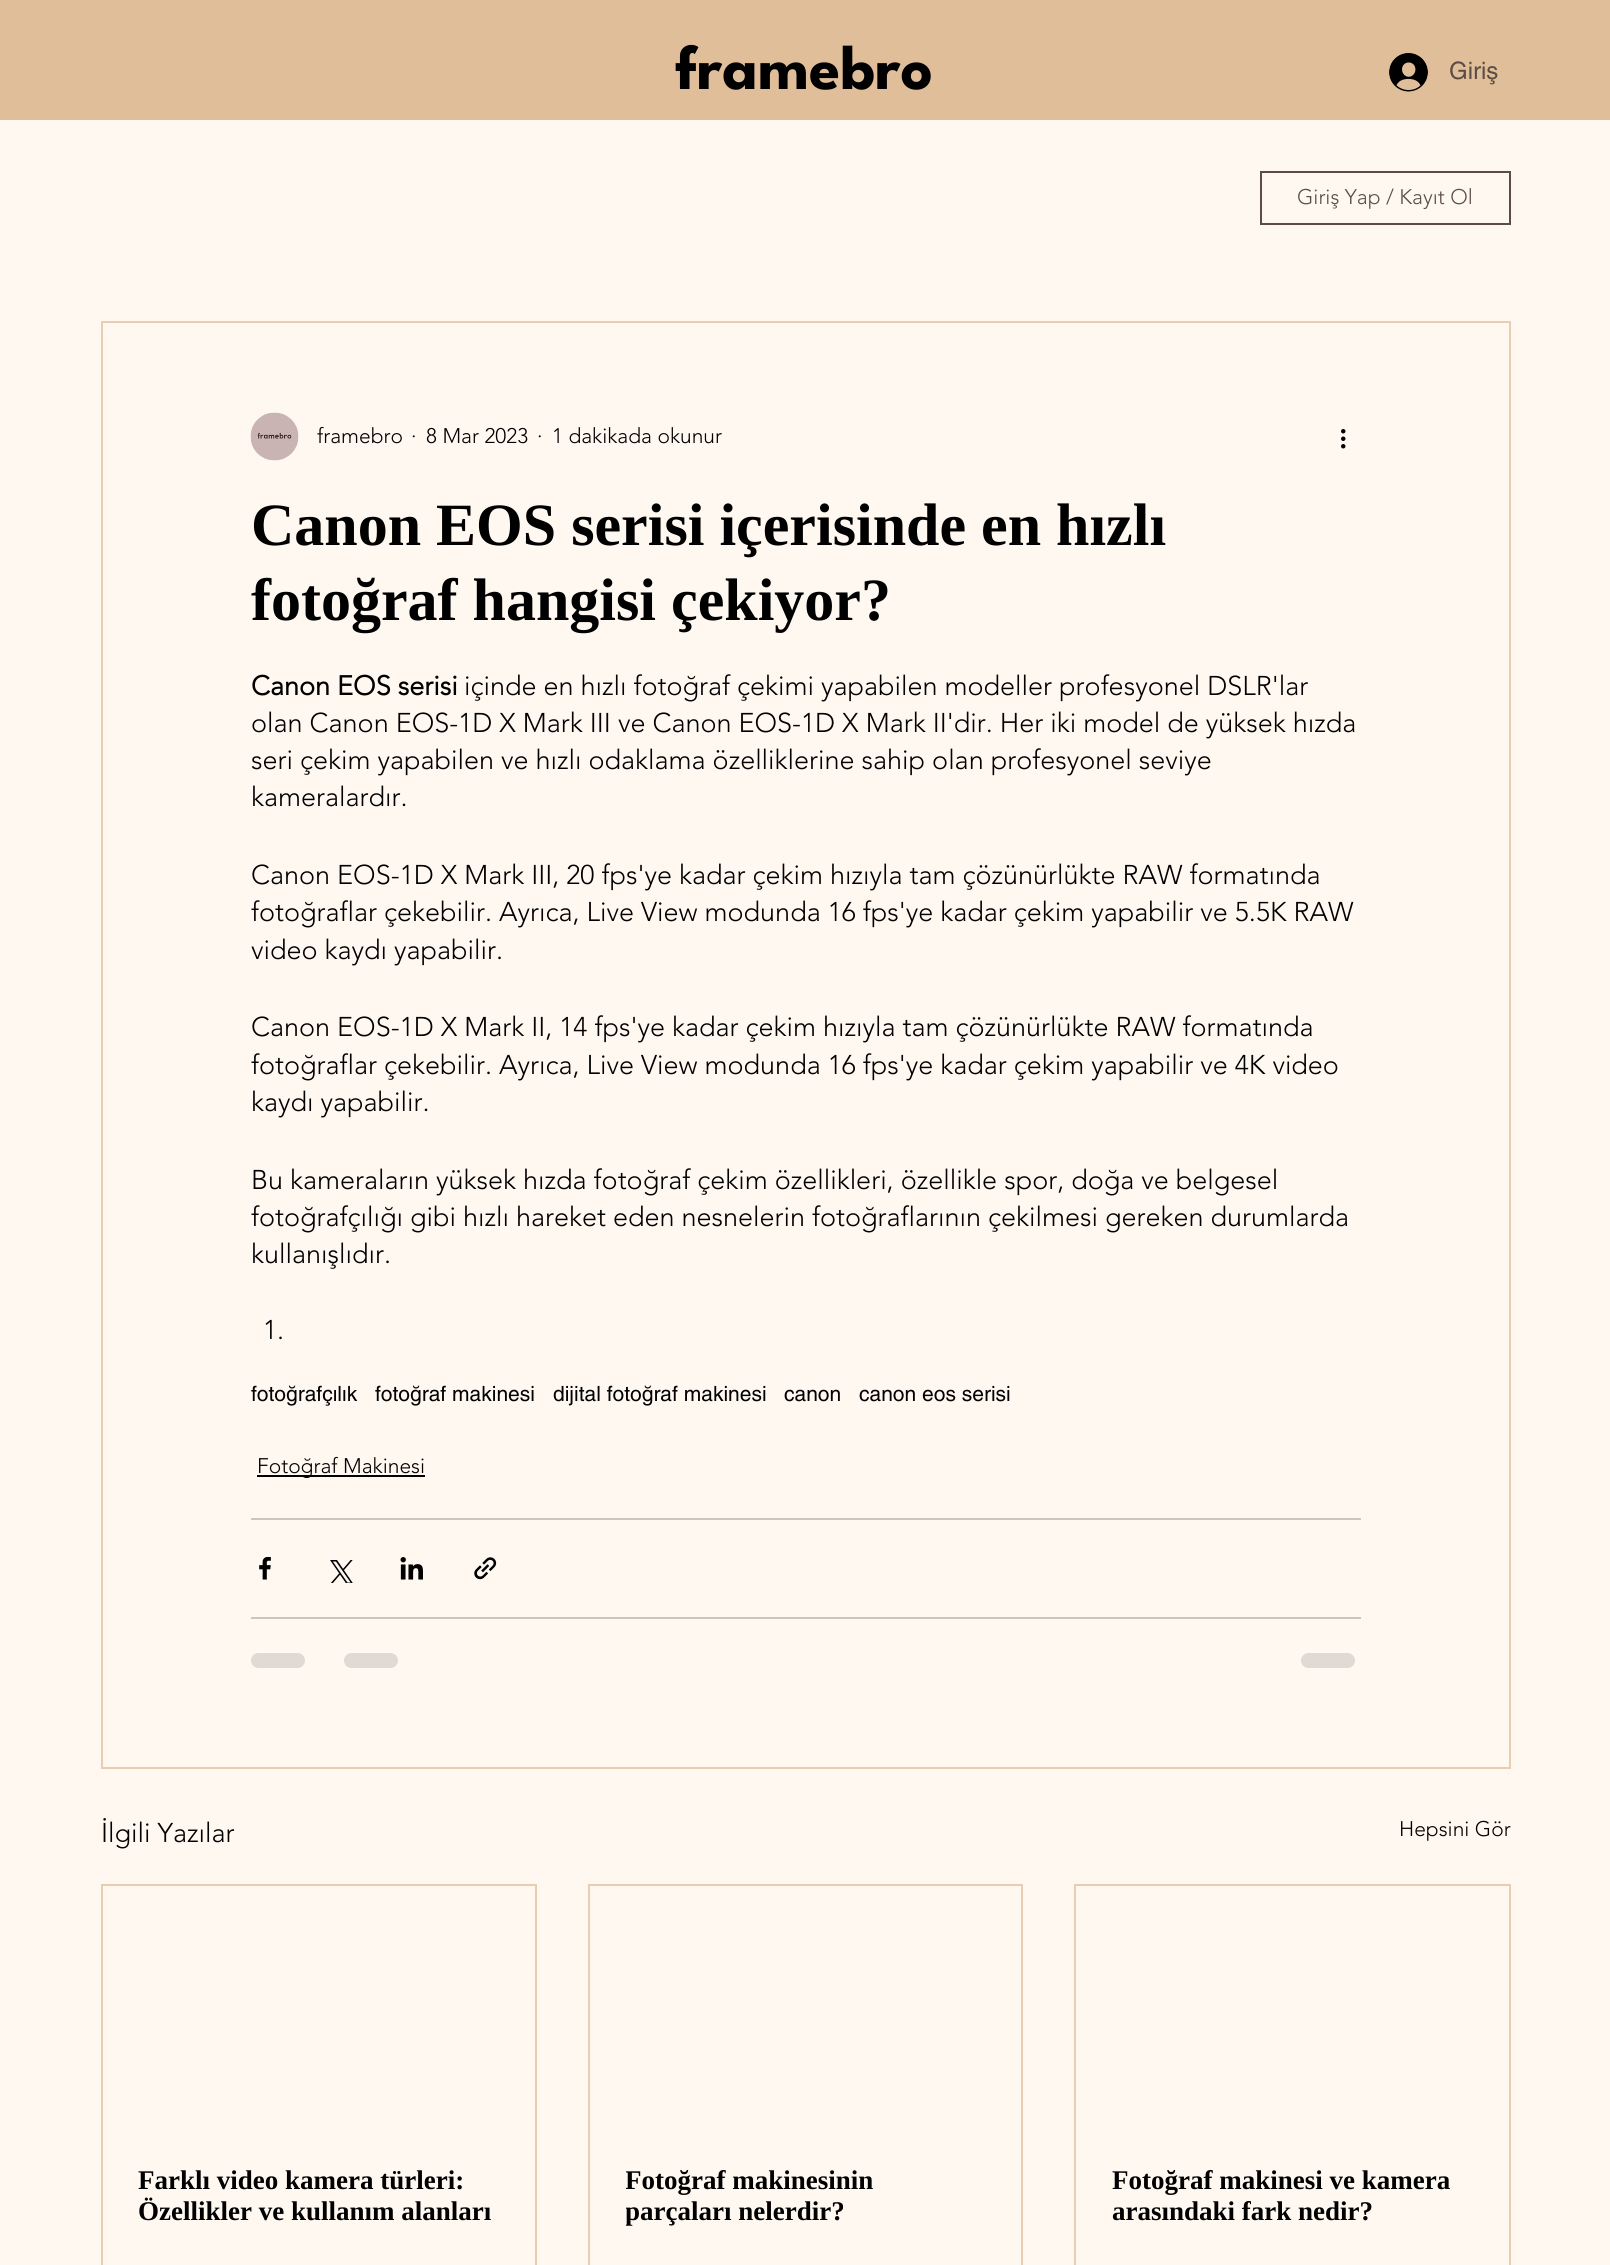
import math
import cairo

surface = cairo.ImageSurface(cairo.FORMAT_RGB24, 1610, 2265)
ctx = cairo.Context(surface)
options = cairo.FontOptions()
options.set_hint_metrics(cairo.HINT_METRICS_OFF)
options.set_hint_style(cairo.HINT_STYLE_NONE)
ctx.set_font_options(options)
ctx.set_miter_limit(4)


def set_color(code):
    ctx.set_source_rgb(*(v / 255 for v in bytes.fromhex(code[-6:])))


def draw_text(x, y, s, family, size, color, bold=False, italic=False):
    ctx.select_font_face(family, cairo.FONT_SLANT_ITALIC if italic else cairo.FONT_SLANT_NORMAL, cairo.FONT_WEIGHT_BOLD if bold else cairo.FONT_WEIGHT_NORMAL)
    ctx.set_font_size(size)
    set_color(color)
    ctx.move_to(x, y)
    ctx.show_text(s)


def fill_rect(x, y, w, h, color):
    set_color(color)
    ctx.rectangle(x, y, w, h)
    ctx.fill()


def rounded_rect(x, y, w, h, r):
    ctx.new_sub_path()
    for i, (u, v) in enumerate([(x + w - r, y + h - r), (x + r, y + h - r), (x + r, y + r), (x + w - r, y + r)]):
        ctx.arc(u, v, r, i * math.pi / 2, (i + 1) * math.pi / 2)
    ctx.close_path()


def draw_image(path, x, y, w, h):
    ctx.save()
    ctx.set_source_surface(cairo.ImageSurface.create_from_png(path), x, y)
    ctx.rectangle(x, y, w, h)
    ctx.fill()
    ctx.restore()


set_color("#fff8f1")
ctx.paint()
fill_rect(0, 0, 1610, 120, "#e0be9a")
draw_text(675, 89, "framebro", "League Spartan", 63, "#000000", bold=True)
draw_image("assets/img1.png", 1389, 53, 39, 39)
draw_text(1449, 79, "Giriş", "helvetica", 24, "#5b4d43")
ctx.rectangle(1261, 172, 249, 52)
ctx.stroke()
draw_text(1297, 204, "Giriş Yap / Kayıt Ol", "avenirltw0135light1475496 Light", 21, "#5b4d43")
ctx.rectangle(102, 322, 1408, 1446)
set_color("#e8cdb0")
ctx.stroke()
draw_image("assets/img2.png", 250, 412, 49, 49)
draw_text(317, 443, "framebro", "avenirltw0135light1475496 Light", 21, "#000000")
draw_text(411, 443, "·", "avenirltw0135light1475496 Light", 21, "#000000")
draw_text(426, 443, "8 Mar 2023", "avenirltw0135light1475496 Light", 21, "#000000")
draw_text(537, 443, "·", "avenirltw0135light1475496 Light", 21, "#000000")
draw_text(552, 443, "1 dakikada okunur", "avenirltw0135light1475496 Light", 21, "#000000")
draw_image("assets/img3.png", 1341, 429, 5, 20)
draw_text(251, 545, "Canon EOS serisi içerisinde en hızlı", "Liberation Serif", 60, "#000000", bold=True)
draw_text(251, 620, "fotoğraf hangisi çekiyor?", "Liberation Serif", 60, "#000000", bold=True)
draw_text(251, 695, "Canon EOS serisi", "avenirltw0135light1475496", 27, "#000000", bold=True)
draw_text(464, 695, "içinde en hızlı fotoğraf çekimi yapabilen modeller profesyonel DSLR'lar", "avenirltw0135light1475496 Light", 27, "#000000")
draw_text(251, 732, "olan Canon EOS-1D X Mark III ve Canon EOS-1D X Mark II'dir. Her iki model de yüksek hızda", "avenirltw0135light1475496 Light", 27, "#000000")
draw_text(251, 769, "seri çekim yapabilen ve hızlı odaklama özelliklerine sahip olan profesyonel seviye", "avenirltw0135light1475496 Light", 27, "#000000")
draw_text(251, 806, "kameralardır.", "avenirltw0135light1475496 Light", 27, "#000000")
draw_text(251, 884, "Canon EOS-1D X Mark III, 20 fps'ye kadar çekim hızıyla tam çözünürlükte RAW formatında", "avenirltw0135light1475496 Light", 27, "#000000")
draw_text(251, 921, "fotoğraflar çekebilir. Ayrıca, Live View modunda 16 fps'ye kadar çekim yapabilir ve 5.5K RAW", "avenirltw0135light1475496 Light", 27, "#000000")
draw_text(251, 959, "video kaydı yapabilir.", "avenirltw0135light1475496 Light", 27, "#000000")
draw_text(251, 1036, "Canon EOS-1D X Mark II, 14 fps'ye kadar çekim hızıyla tam çözünürlükte RAW formatında", "avenirltw0135light1475496 Light", 27, "#000000")
draw_text(251, 1074, "fotoğraflar çekebilir. Ayrıca, Live View modunda 16 fps'ye kadar çekim yapabilir ve 4K video", "avenirltw0135light1475496 Light", 27, "#000000")
draw_text(251, 1111, "kaydı yapabilir.", "avenirltw0135light1475496 Light", 27, "#000000")
draw_text(251, 1189, "Bu kameraların yüksek hızda fotoğraf çekim özellikleri, özellikle spor, doğa ve belgesel", "avenirltw0135light1475496 Light", 27, "#000000")
draw_text(251, 1226, "fotoğrafçılığı gibi hızlı hareket eden nesnelerin fotoğraflarının çekilmesi gereken durumlarda", "avenirltw0135light1475496 Light", 27, "#000000")
draw_text(251, 1263, "kullanışlıdır.", "avenirltw0135light1475496 Light", 27, "#000000")
draw_text(263, 1339, "1.", "avenirltw0135light1475496 Light", 27, "#000000")
draw_text(251, 1401, "fotoğrafçılık", "helvetica", 21, "#000000")
draw_text(375, 1401, "fotoğraf makinesi", "helvetica", 21, "#000000")
draw_text(553, 1401, "dijital fotoğraf makinesi", "helvetica", 21, "#000000")
draw_text(784, 1401, "canon", "helvetica", 21, "#000000")
draw_text(859, 1401, "canon eos serisi", "helvetica", 21, "#000000")
fill_rect(257, 1475, 168, 2, "#000000")
draw_text(257, 1473, "Fotoğraf Makinesi", "avenirltw0135light1475496 Light", 21, "#000000")
fill_rect(251, 1518, 1110, 2, "#ccc6c1")
draw_image("assets/img4.png", 259, 1557, 12, 23)
draw_image("assets/img5.png", 330, 1560, 23, 23)
draw_image("assets/img6.png", 400, 1557, 23, 23)
draw_image("assets/img7.png", 474, 1557, 23, 23)
fill_rect(251, 1617, 1110, 2, "#ccc6c1")
set_color("#e0dad4")
rounded_rect(251, 1653, 54, 15, 7.5)
ctx.fill()
rounded_rect(344, 1653, 54, 15, 7.5)
ctx.fill()
rounded_rect(1301, 1653, 54, 15, 7.5)
ctx.fill()
draw_text(101, 1842, "İlgili Yazılar", "avenirltw0135light1475496 Light", 27, "#000000")
draw_text(1399, 1836, "Hepsini Gör", "avenirltw0135light1475496 Light", 21, "#000000")
ctx.rectangle(102, 1885, 434, 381)
set_color("#e8cdb0")
ctx.stroke()
draw_text(138, 2189, "Farklı video kamera türleri:", "Liberation Serif", 27, "#000000", bold=True)
draw_text(138, 2220, "Özellikler ve kullanım alanları", "Liberation Serif", 27, "#000000", bold=True)
ctx.rectangle(589, 1885, 433, 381)
set_color("#e8cdb0")
ctx.stroke()
ctx.save()
ctx.rectangle(626, 2165, 360, 63)
ctx.clip()
draw_text(625, 2189, "Fotoğraf makinesinin", "Liberation Serif", 27, "#000000", bold=True)
draw_text(625, 2220, "parçaları nelerdir?", "Liberation Serif", 27, "#000000", bold=True)
ctx.restore()
ctx.rectangle(1075, 1885, 435, 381)
ctx.stroke()
draw_text(1112, 2189, "Fotoğraf makinesi ve kamera", "Liberation Serif", 27, "#000000", bold=True)
draw_text(1112, 2220, "arasındaki fark nedir?", "Liberation Serif", 27, "#000000", bold=True)
surface.write_to_png("output.png")
